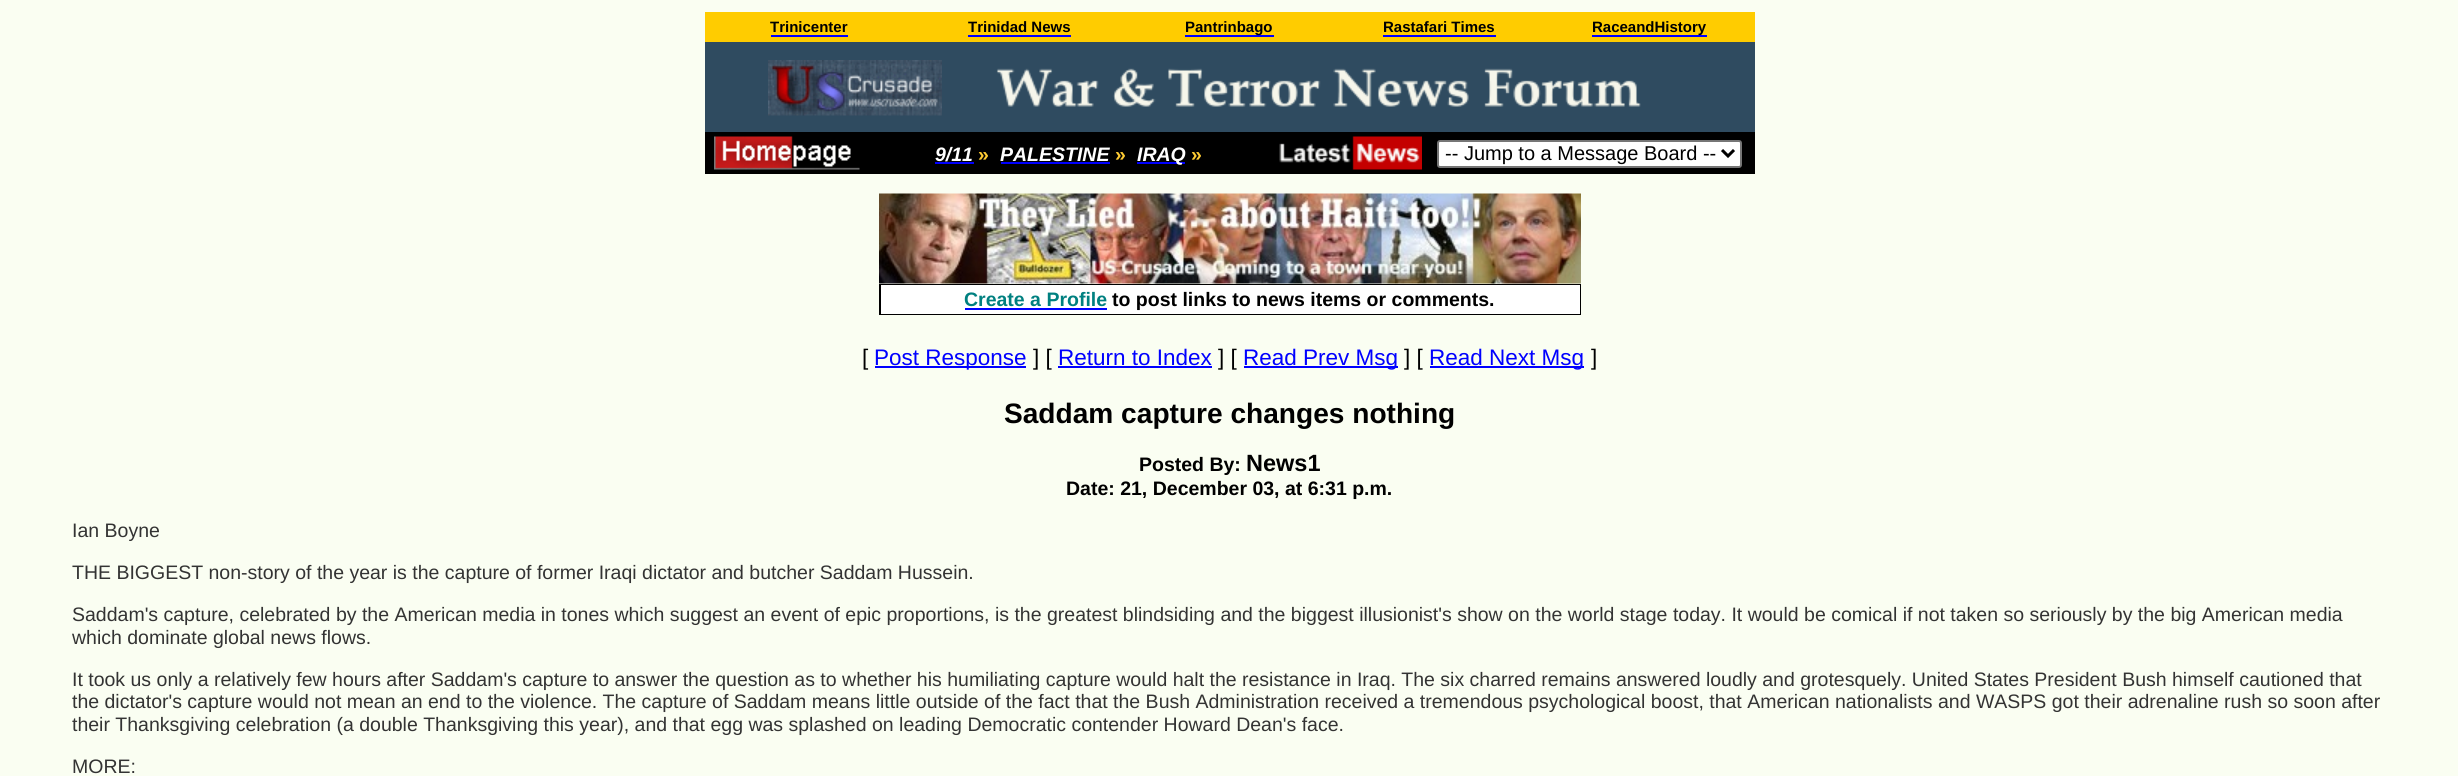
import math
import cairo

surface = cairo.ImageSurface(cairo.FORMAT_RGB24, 2458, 776)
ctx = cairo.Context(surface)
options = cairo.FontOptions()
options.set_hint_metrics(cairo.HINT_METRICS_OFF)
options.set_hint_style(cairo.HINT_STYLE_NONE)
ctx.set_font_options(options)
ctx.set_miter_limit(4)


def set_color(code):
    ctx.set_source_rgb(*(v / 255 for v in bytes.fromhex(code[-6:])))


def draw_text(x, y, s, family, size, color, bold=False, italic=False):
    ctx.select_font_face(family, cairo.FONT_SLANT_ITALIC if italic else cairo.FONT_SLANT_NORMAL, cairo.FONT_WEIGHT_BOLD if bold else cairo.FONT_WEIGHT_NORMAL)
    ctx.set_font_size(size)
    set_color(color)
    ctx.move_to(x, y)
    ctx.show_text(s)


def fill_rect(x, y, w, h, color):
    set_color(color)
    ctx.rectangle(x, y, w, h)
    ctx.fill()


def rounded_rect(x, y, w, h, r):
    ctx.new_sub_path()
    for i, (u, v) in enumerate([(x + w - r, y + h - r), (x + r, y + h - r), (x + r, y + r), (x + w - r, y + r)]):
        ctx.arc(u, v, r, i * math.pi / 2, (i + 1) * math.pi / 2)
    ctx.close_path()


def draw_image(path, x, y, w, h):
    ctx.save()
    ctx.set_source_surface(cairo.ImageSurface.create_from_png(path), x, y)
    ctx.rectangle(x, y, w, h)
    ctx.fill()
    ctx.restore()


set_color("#fafef2")
ctx.paint()
fill_rect(705, 12, 1050, 30, "#ffcc00")
draw_text(770, 32, "Trinicenter", "Liberation Sans", 15, "#000000", bold=True)
fill_rect(771, 35, 77, 2, "#0000ff")
draw_text(968, 32, "Trinidad News", "Liberation Sans", 15, "#000000", bold=True)
fill_rect(968, 35, 103, 2, "#0000ff")
fill_rect(1185, 35, 89, 2, "#0000ff")
draw_text(1185, 32, "Pantrinbago", "Liberation Sans", 15, "#000000", bold=True)
draw_text(1383, 32, "Rastafari Times", "Liberation Sans", 15, "#000000", bold=True)
fill_rect(1383, 35, 113, 2, "#0000ff")
fill_rect(1592, 35, 115, 2, "#0000ff")
draw_text(1592, 32, "RaceandHistory", "Liberation Sans", 15, "#000000", bold=True)
fill_rect(705, 42, 1050, 90, "#2f4b60")
draw_image("assets/img1.png", 768, 60, 174, 56)
draw_image("assets/img2.png", 996, 68, 645, 39)
fill_rect(705, 132, 1050, 42, "#000000")
draw_image("assets/img3.png", 714, 136, 146, 34)
draw_text(935, 161, "9/11", "Liberation Sans", 19.5, "#ffffff", bold=True, italic=True)
fill_rect(935, 162, 39, 2, "#0000ff")
draw_text(978, 161, "»", "Liberation Sans", 19.5, "#ffcc33", bold=True)
draw_text(1000, 161, "PALESTINE", "Liberation Sans", 19.5, "#ffffff", bold=True, italic=True)
fill_rect(1001, 162, 109, 2, "#0000ff")
draw_text(1115, 161, "»", "Liberation Sans", 19.5, "#ffcc33", bold=True)
fill_rect(1137, 162, 48, 2, "#0000ff")
draw_text(1137, 161, "IRAQ", "Liberation Sans", 19.5, "#ffffff", bold=True, italic=True)
draw_text(1191, 161, "»", "Liberation Sans", 19.5, "#ffcc33", bold=True)
draw_image("assets/img4.png", 1279, 136, 143, 34)
set_color("#ffffff")
rounded_rect(1438, 141, 303, 26, 2)
ctx.fill_preserve()
set_color("#767676")
ctx.stroke()
ctx.new_path()
ctx.move_to(1722, 150)
ctx.line_to(1728, 156)
ctx.line_to(1734, 150)
set_color("#000000")
ctx.set_line_width(3)
ctx.stroke()
draw_text(1445, 160, "-- Jump to a Message Board --", "Liberation Sans", 20, "#000000")
draw_image("assets/img5.png", 879, 193, 702, 91)
fill_rect(879, 284, 702, 31, "#000000")
fill_rect(881, 285, 699, 29, "#ffffff")
draw_text(964, 306, "Create a Profile", "Liberation Sans", 19.5, "#008080", bold=True)
fill_rect(965, 308, 142, 2, "#0000ff")
draw_text(1112, 306, "to post links to news items or comments.", "Liberation Sans", 19.5, "#000000", bold=True)
draw_text(862, 365, "[", "Liberation Sans", 22.5, "#000000")
fill_rect(875, 366, 151, 2, "#0000ff")
draw_text(874, 365, "Post Response", "Liberation Sans", 22.5, "#0000ff")
draw_text(1033, 365, "] [", "Liberation Sans", 22.5, "#000000")
draw_text(1058, 365, "Return to Index", "Liberation Sans", 22.5, "#0000ff")
fill_rect(1058, 366, 154, 2, "#0000ff")
draw_text(1218, 365, "] [", "Liberation Sans", 22.5, "#000000")
fill_rect(1244, 366, 154, 2, "#0000ff")
draw_text(1243, 365, "Read Prev Msg", "Liberation Sans", 22.5, "#0000ff")
draw_text(1404, 365, "] [", "Liberation Sans", 22.5, "#000000")
fill_rect(1430, 366, 154, 2, "#0000ff")
draw_text(1429, 365, "Read Next Msg", "Liberation Sans", 22.5, "#0000ff")
draw_text(1591, 365, "]", "Liberation Sans", 22.5, "#000000")
draw_text(1004, 423, "Saddam capture changes nothing", "Liberation Sans", 28.1, "#000000", bold=True)
draw_text(1139, 471, "Posted By:", "Liberation Sans", 19.5, "#000000", bold=True)
draw_text(1246, 471, "News1", "Liberation Sans", 23.5, "#000000", bold=True)
draw_text(1066, 495, "Date: 21, December 03, at 6:31 p.m.", "Liberation Sans", 19.5, "#000000", bold=True)
draw_text(72, 537, "Ian Boyne", "Liberation Sans", 19.5, "#333333")
draw_text(72, 579, "THE BIGGEST non-story of the year is the capture of former Iraqi dictator and butcher Saddam Hussein.", "Liberation Sans", 19.5, "#333333")
draw_text(72, 621, "Saddam's capture, celebrated by the American media in tones which suggest an event of epic proportions, is the greatest blindsiding and the biggest illusionist's show on the world stage today. It would be comical if not taken so seriously by the big American media", "Liberation Sans", 19.5, "#333333")
draw_text(72, 644, "which dominate global news flows.", "Liberation Sans", 19.5, "#333333")
draw_text(72, 686, "It took us only a relatively few hours after Saddam's capture to answer the question as to whether his humiliating capture would halt the resistance in Iraq. The six charred remains answered loudly and grotesquely. United States President Bush himself cautioned that", "Liberation Sans", 19.5, "#333333")
draw_text(72, 708, "the dictator's capture would not mean an end to the violence. The capture of Saddam means little outside of the fact that the Bush Administration received a tremendous psychological boost, that American nationalists and WASPS got their adrenaline rush so soon after", "Liberation Sans", 19.5, "#333333")
draw_text(72, 731, "their Thanksgiving celebration (a double Thanksgiving this year), and that egg was splashed on leading Democratic contender Howard Dean's face.", "Liberation Sans", 19.5, "#333333")
draw_text(72, 773, "MORE:", "Liberation Sans", 19.5, "#333333")
surface.write_to_png("output.png")
